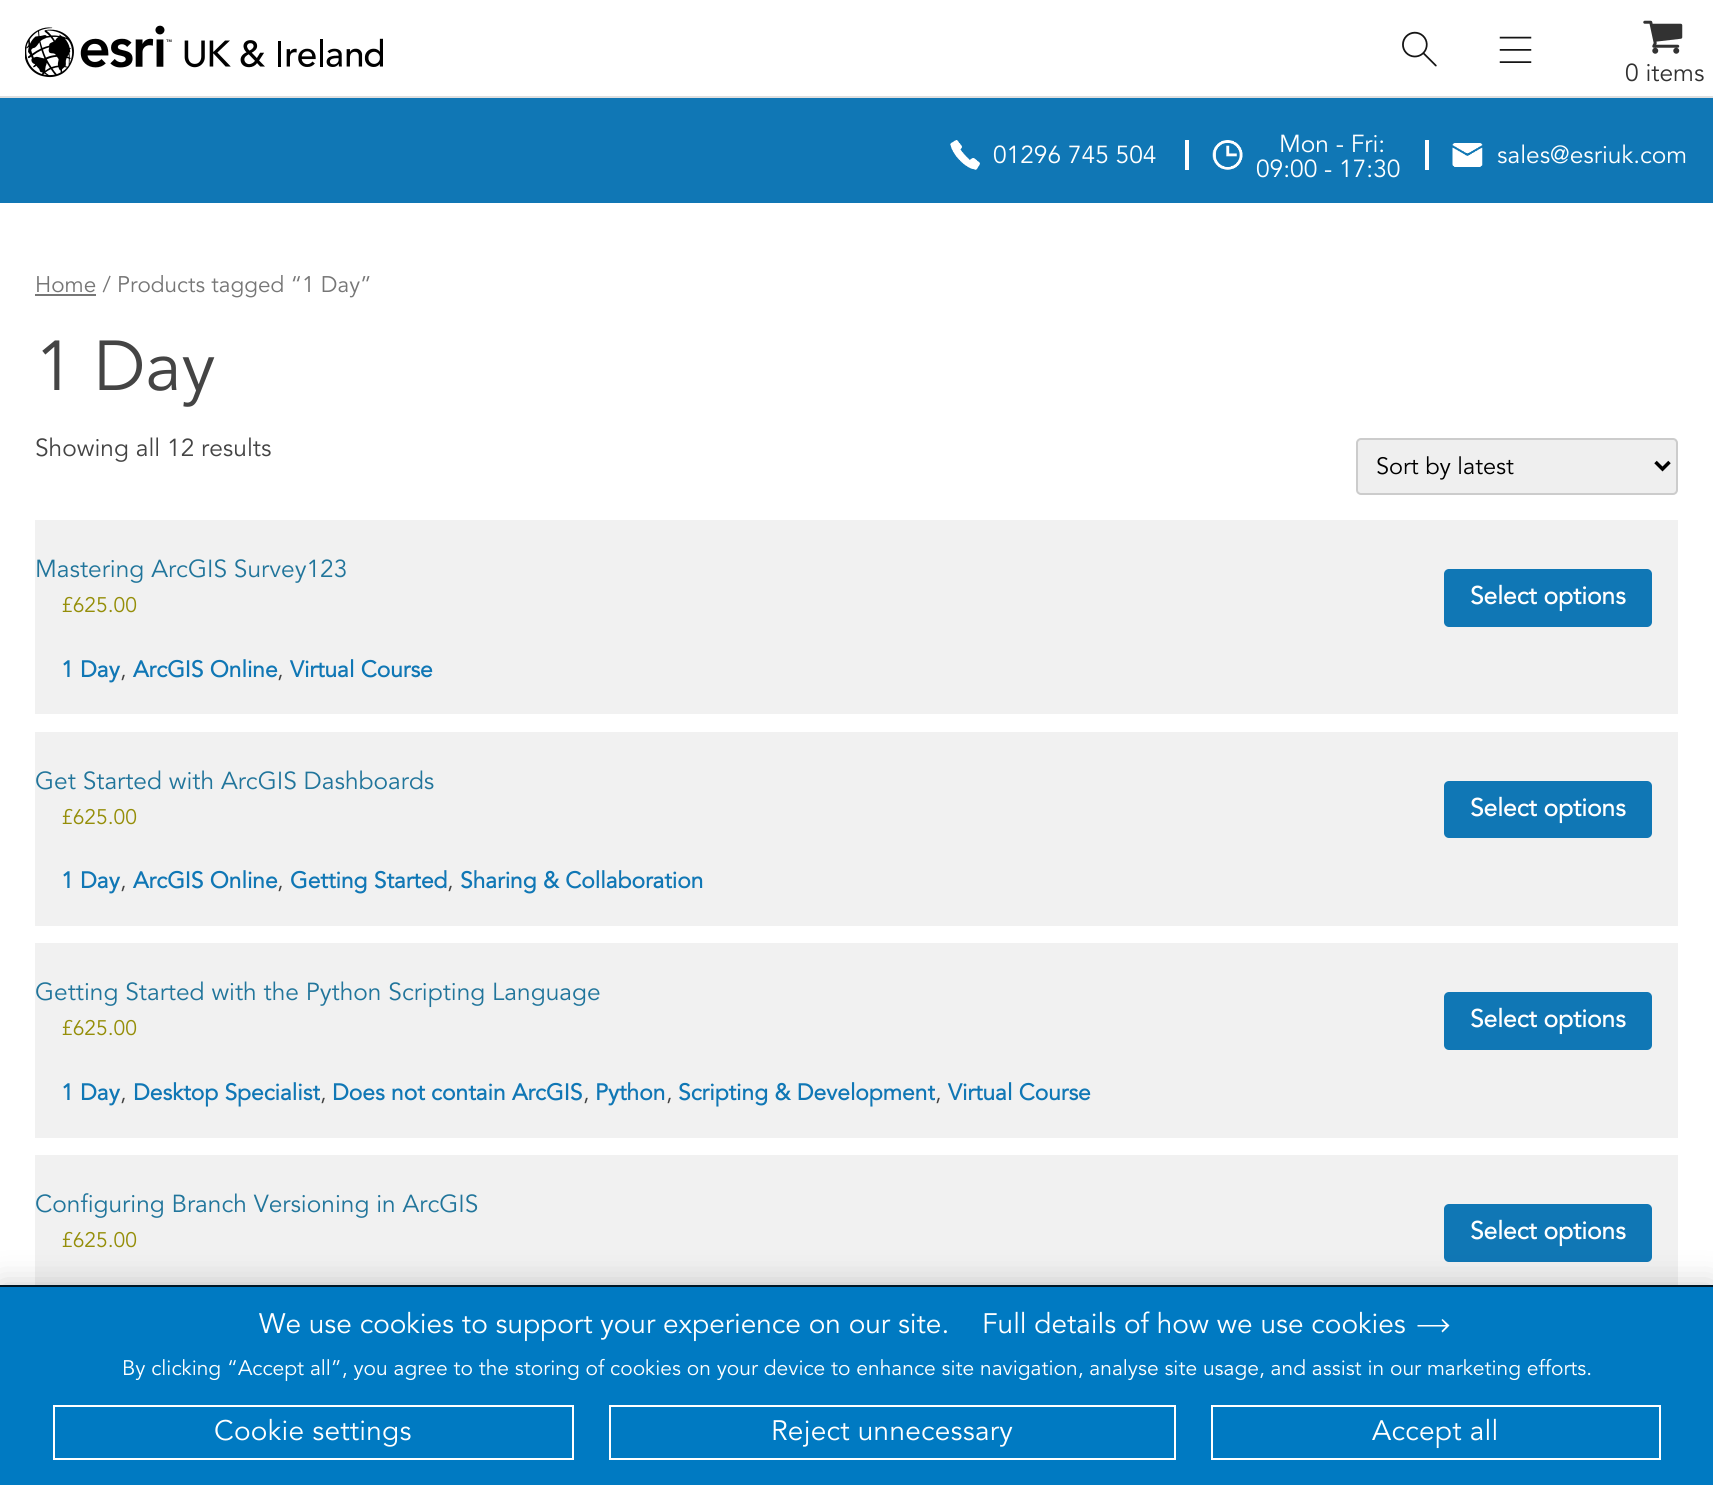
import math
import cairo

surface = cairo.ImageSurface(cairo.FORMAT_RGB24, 1713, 1485)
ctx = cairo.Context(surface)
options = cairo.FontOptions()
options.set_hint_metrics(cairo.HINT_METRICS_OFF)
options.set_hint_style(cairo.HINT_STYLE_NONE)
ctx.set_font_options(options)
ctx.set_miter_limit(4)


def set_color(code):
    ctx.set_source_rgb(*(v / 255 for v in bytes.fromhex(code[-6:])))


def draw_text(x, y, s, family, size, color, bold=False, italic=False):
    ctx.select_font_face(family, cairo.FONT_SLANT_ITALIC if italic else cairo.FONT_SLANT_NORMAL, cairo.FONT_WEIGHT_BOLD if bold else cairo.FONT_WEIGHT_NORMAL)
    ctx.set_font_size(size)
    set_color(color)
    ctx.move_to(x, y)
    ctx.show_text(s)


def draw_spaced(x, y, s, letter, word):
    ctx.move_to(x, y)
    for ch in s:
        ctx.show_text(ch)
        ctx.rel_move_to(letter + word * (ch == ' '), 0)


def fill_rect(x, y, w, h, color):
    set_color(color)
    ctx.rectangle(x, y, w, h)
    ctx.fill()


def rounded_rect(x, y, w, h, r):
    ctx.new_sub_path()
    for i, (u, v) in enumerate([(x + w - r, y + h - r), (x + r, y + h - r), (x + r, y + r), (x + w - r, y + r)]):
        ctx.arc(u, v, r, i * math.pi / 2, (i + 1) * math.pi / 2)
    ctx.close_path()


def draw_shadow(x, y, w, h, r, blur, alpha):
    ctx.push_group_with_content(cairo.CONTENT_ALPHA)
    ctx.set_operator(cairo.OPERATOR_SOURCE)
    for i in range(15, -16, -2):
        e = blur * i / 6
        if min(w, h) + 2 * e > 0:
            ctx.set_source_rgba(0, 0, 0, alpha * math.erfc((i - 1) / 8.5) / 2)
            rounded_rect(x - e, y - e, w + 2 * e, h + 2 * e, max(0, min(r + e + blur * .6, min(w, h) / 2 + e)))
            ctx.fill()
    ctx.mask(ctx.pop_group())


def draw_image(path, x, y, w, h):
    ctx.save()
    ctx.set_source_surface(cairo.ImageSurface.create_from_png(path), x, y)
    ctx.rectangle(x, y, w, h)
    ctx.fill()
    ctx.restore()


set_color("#ffffff")
ctx.paint()
fill_rect(0, 96, 1713, 2, "#dfdfdf")
draw_image("assets/img1.png", 25, 25, 358, 53)
draw_image("assets/img2.png", 1402, 31, 35, 36)
draw_image("assets/img3.png", 1499, 36, 33, 27)
draw_image("assets/img4.png", 1643, 20, 40, 34)
draw_text(1625, 81, "0 items", "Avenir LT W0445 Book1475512", 24.5, "#323232")
fill_rect(0, 98, 1713, 105, "#1077b5")
draw_image("assets/img5.png", 950, 140, 30, 30)
draw_text(993, 163, "01296 745 504", "Avenir LT W0445 Book1475512", 24.5, "#ffffff")
fill_rect(1185, 140, 4, 30, "#ffffff")
draw_image("assets/img6.png", 1212, 140, 31, 30)
fill_rect(1425, 140, 4, 30, "#ffffff")
draw_text(1279, 152, "Mon - Fri:", "Avenir LT W0445 Book1475512", 24.5, "#ffffff")
draw_text(1256, 177, "09:00 - 17:30", "Avenir LT W0445 Book1475512", 24.5, "#ffffff")
draw_image("assets/img7.png", 1452, 143, 31, 24)
draw_text(1497, 163, "sales@esriuk.com", "Avenir LT W0445 Book1475512", 24.5, "#ffffff")
fill_rect(35, 294, 61, 2, "#767676")
draw_text(35, 292, "Home / Products tagged “1 Day”", "Avenir LT W0445 Book1475512", 22.5, "#767676")
draw_text(35, 390, "1 Day", "Avenir LT W0445 Book1475512", 70, "#444444")
draw_text(35, 456, "Showing all 12 results", "Avenir LT W0445 Book1475512", 24.5, "#444444")
set_color("#efefef")
rounded_rect(1357, 439, 320, 55, 4)
ctx.fill_preserve()
set_color("#cccccc")
ctx.stroke()
ctx.new_path()
ctx.move_to(1655.5, 462)
ctx.line_to(1662.5, 469)
ctx.line_to(1669.5, 462)
set_color("#000000")
ctx.set_line_width(3.5)
ctx.stroke()
draw_text(1376, 474, "Sort by latest", "Avenir LT W0445 Book1475512", 23.5, "#000000")
fill_rect(35, 520, 1643, 194, "#f1f1f1")
draw_text(35, 577, "Mastering ArcGIS Survey123", "Avenir LT W0445 Book1475512", 24.5, "#21759b")
draw_text(61, 612, "£625.00", "Avenir LT W0445 Book1475512", 21, "#958e09")
set_color("#1077b5")
rounded_rect(1444, 569, 208, 58, 5)
ctx.fill()
draw_text(1470, 604, "Select options", "Avenir LT W0445 Book1475512", 24.5, "#ffffff", bold=True)
draw_text(61, 677, "1 Day", "Avenir LT W0445 Book1475512", 22.75, "#1077b5", bold=True)
draw_text(120, 677, ",", "Avenir LT W0445 Book1475512", 22.75, "#444444")
draw_text(133, 677, "ArcGIS Online", "Avenir LT W0445 Book1475512", 22.75, "#1077b5", bold=True)
draw_text(277, 677, ",", "Avenir LT W0445 Book1475512", 22.75, "#444444")
draw_text(290, 677, "Virtual Course", "Avenir LT W0445 Book1475512", 22.75, "#1077b5", bold=True)
fill_rect(35, 732, 1643, 194, "#f1f1f1")
draw_text(35, 789, "Get Started with ArcGIS Dashboards", "Avenir LT W0445 Book1475512", 24.5, "#21759b")
draw_text(61, 824, "£625.00", "Avenir LT W0445 Book1475512", 21, "#958e09")
set_color("#1077b5")
rounded_rect(1444, 781, 208, 57, 5)
ctx.fill()
draw_text(1470, 816, "Select options", "Avenir LT W0445 Book1475512", 24.5, "#ffffff", bold=True)
draw_text(61, 888, "1 Day", "Avenir LT W0445 Book1475512", 22.75, "#1077b5", bold=True)
draw_text(120, 888, ",", "Avenir LT W0445 Book1475512", 22.75, "#444444")
draw_text(133, 888, "ArcGIS Online", "Avenir LT W0445 Book1475512", 22.75, "#1077b5", bold=True)
draw_text(277, 888, ",", "Avenir LT W0445 Book1475512", 22.75, "#444444")
draw_text(290, 888, "Getting Started", "Avenir LT W0445 Book1475512", 22.75, "#1077b5", bold=True)
draw_text(447, 888, ",", "Avenir LT W0445 Book1475512", 22.75, "#444444")
draw_text(460, 888, "Sharing & Collaboration", "Avenir LT W0445 Book1475512", 22.75, "#1077b5", bold=True)
fill_rect(35, 943, 1643, 195, "#f1f1f1")
draw_text(35, 1000, "Getting Started with the Python Scripting Language", "Avenir LT W0445 Book1475512", 24.5, "#21759b")
draw_text(61, 1035, "£625.00", "Avenir LT W0445 Book1475512", 21, "#958e09")
set_color("#1077b5")
rounded_rect(1444, 992, 208, 58, 5)
ctx.fill()
draw_text(1470, 1027, "Select options", "Avenir LT W0445 Book1475512", 24.5, "#ffffff", bold=True)
draw_text(61, 1100, "1 Day", "Avenir LT W0445 Book1475512", 22.75, "#1077b5", bold=True)
draw_text(120, 1100, ",", "Avenir LT W0445 Book1475512", 22.75, "#444444")
draw_text(133, 1100, "Desktop Specialist", "Avenir LT W0445 Book1475512", 22.75, "#1077b5", bold=True)
draw_text(320, 1100, ",", "Avenir LT W0445 Book1475512", 22.75, "#444444")
draw_text(332, 1100, "Does not contain ArcGIS", "Avenir LT W0445 Book1475512", 22.75, "#1077b5", bold=True)
draw_text(583, 1100, ",", "Avenir LT W0445 Book1475512", 22.75, "#444444")
draw_text(595, 1100, "Python", "Avenir LT W0445 Book1475512", 22.75, "#1077b5", bold=True)
draw_text(666, 1100, ",", "Avenir LT W0445 Book1475512", 22.75, "#444444")
draw_text(678, 1100, "Scripting & Development", "Avenir LT W0445 Book1475512", 22.75, "#1077b5", bold=True)
draw_text(935, 1100, ",", "Avenir LT W0445 Book1475512", 22.75, "#444444")
draw_text(948, 1100, "Virtual Course", "Avenir LT W0445 Book1475512", 22.75, "#1077b5", bold=True)
fill_rect(35, 1155, 1643, 130, "#f1f1f1")
draw_text(35, 1212, "Configuring Branch Versioning in ArcGIS", "Avenir LT W0445 Book1475512", 24.5, "#21759b")
draw_text(61, 1247, "£625.00", "Avenir LT W0445 Book1475512", 21, "#958e09")
set_color("#1077b5")
rounded_rect(1444, 1204, 208, 58, 5)
ctx.fill()
draw_text(1470, 1239, "Select options", "Avenir LT W0445 Book1475512", 24.5, "#ffffff", bold=True)
set_color("#000000")
draw_shadow(0, 1285, 1713, 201, 0, 16, 0.2)
fill_rect(0, 1287, 1713, 198, "#007ac2")
fill_rect(0, 1285, 1713, 2, "#001726")
draw_text(259, 1333, "We use cookies to support your experience on our site.", "Avenir LT W0445 Book1475512", 28, "#ffffff")
ctx.new_path()
ctx.move_to(1441.5, 1331)
ctx.line_to(1446, 1326.5)
ctx.line_to(1417.5, 1326.5)
ctx.line_to(1417.5, 1325)
ctx.line_to(1446, 1325)
ctx.line_to(1441.5, 1320)
ctx.line_to(1442.5, 1319)
ctx.line_to(1449.5, 1325.5)
ctx.line_to(1442.5, 1332.5)
ctx.close_path()
ctx.fill()
draw_text(982, 1333, "Full details of how we use cookies", "Avenir LT W0445 Book1475512", 28, "#ffffff")
draw_text(122, 1375, "By clicking “Accept all”, you agree to the storing of cookies on your device to enhance site navigation, analyse site usage, and assist in our marketing efforts.", "Avenir LT W0445 Book1475512", 21, "#ffffff")
ctx.rectangle(54, 1406, 519, 53)
ctx.set_line_width(2)
ctx.stroke()
ctx.set_font_size(28)
draw_spaced(214, 1440, "Cookie settings", 0.25, 0)
ctx.rectangle(610, 1406, 565, 53)
ctx.stroke()
draw_spaced(771, 1440, "Reject unnecessary", 0.25, 0)
ctx.rectangle(1212, 1406, 448, 53)
ctx.stroke()
draw_spaced(1372, 1440, "Accept all", 0.25, 0)
surface.write_to_png("output.png")
